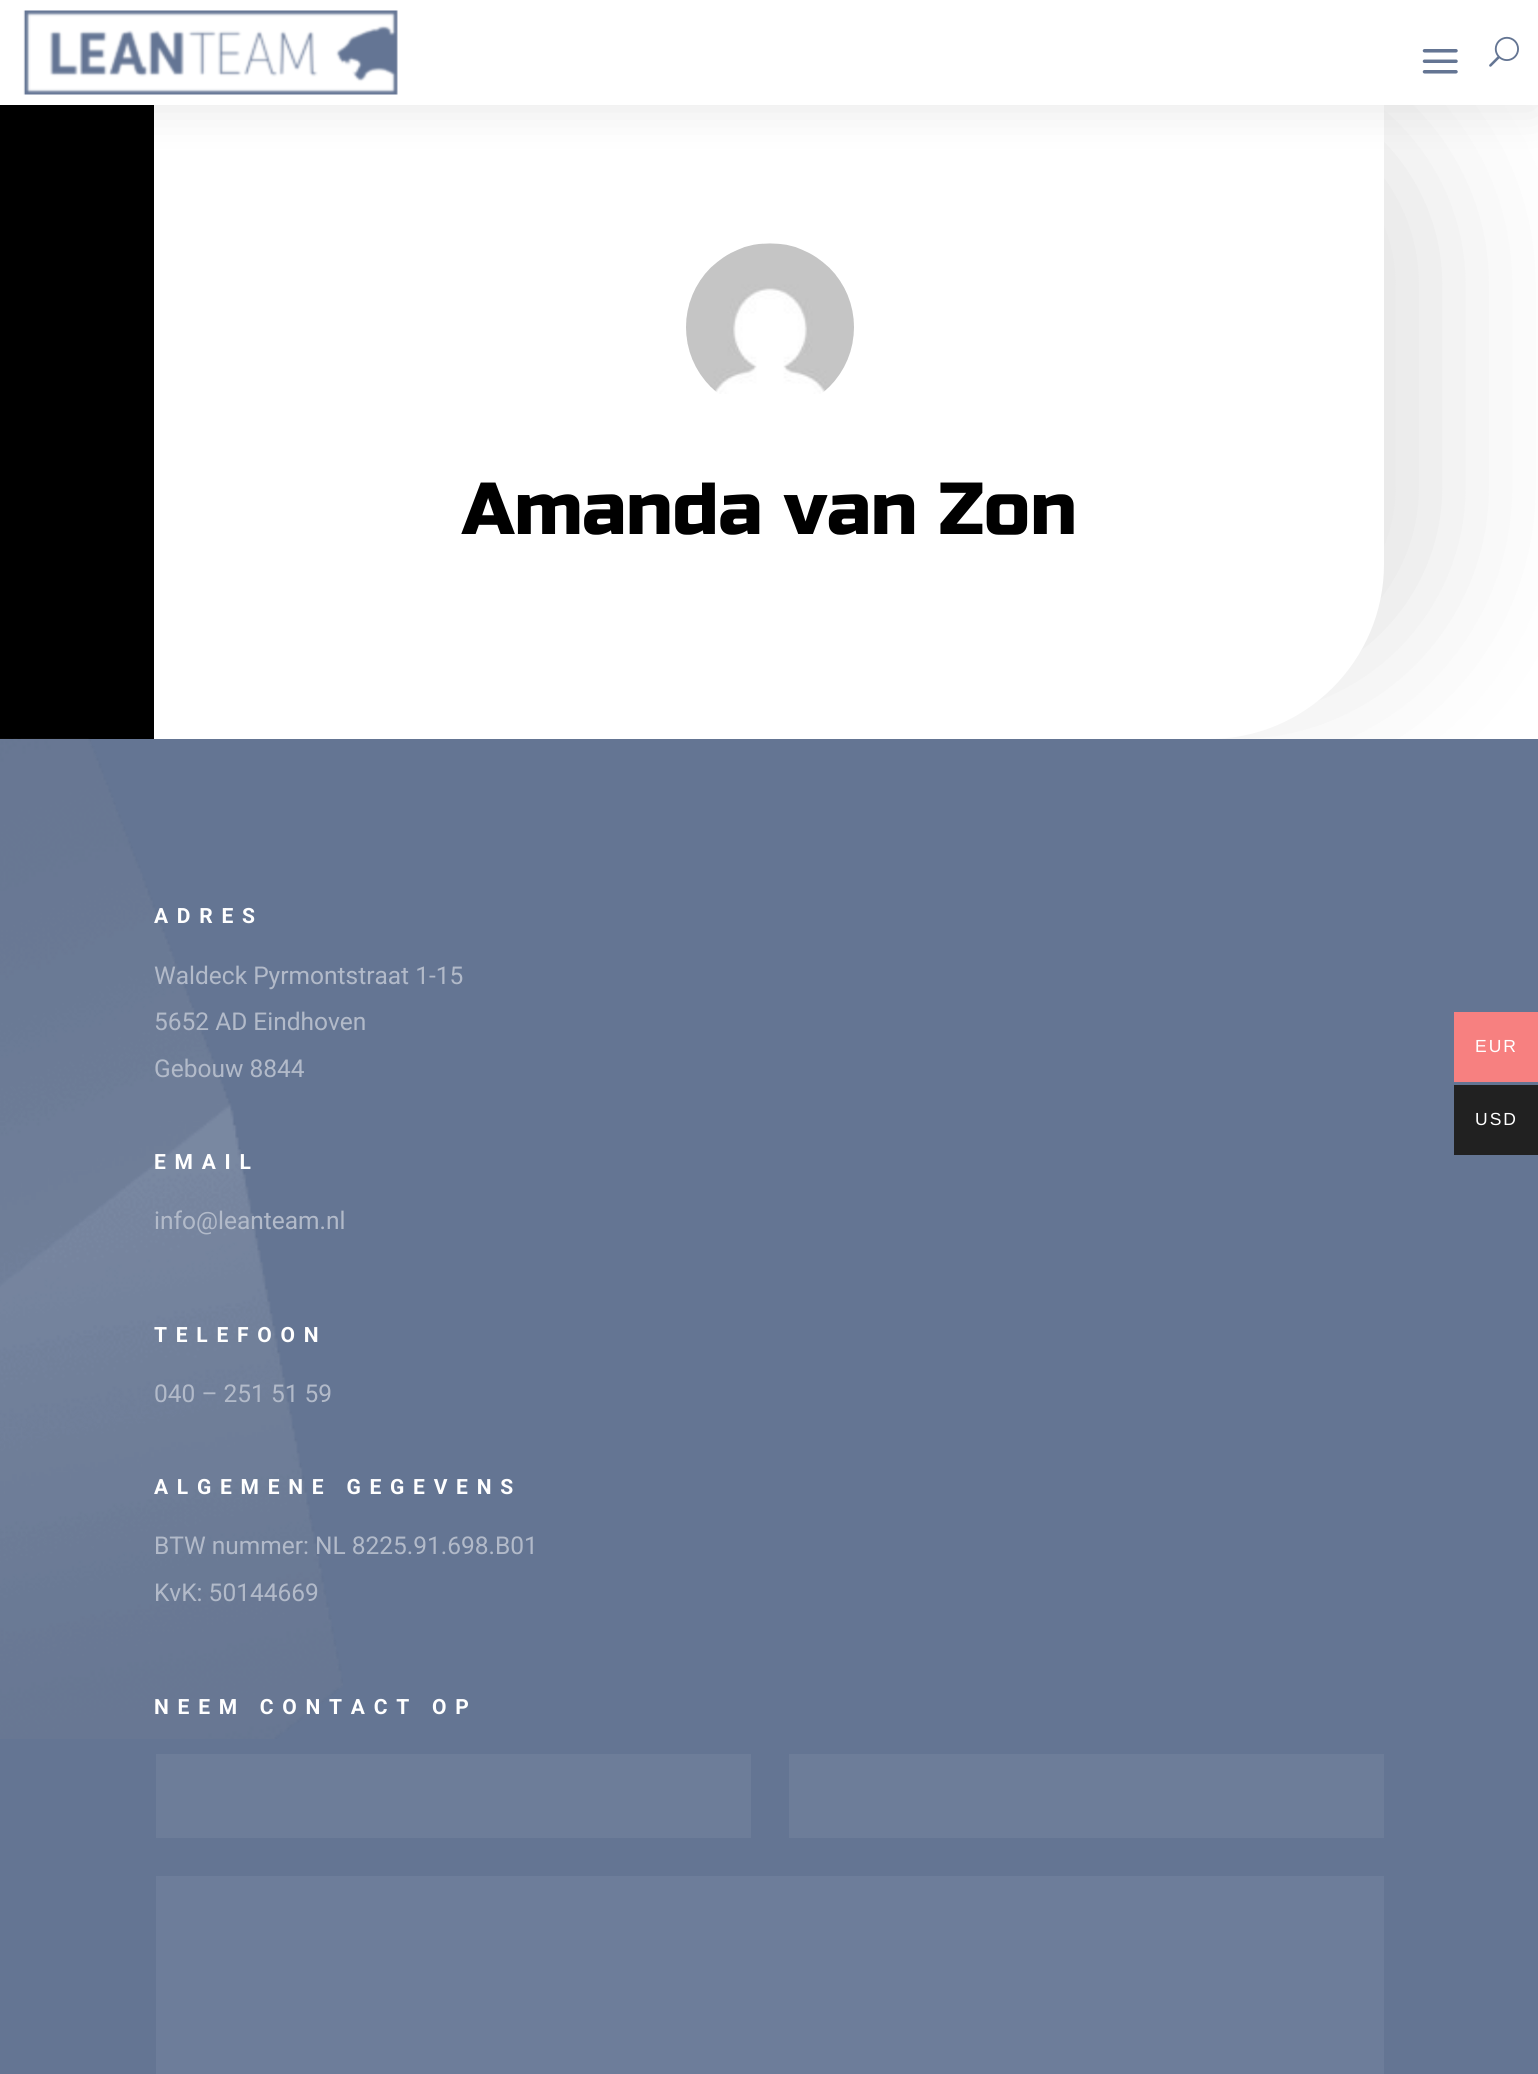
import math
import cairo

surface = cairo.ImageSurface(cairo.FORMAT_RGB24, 1538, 2074)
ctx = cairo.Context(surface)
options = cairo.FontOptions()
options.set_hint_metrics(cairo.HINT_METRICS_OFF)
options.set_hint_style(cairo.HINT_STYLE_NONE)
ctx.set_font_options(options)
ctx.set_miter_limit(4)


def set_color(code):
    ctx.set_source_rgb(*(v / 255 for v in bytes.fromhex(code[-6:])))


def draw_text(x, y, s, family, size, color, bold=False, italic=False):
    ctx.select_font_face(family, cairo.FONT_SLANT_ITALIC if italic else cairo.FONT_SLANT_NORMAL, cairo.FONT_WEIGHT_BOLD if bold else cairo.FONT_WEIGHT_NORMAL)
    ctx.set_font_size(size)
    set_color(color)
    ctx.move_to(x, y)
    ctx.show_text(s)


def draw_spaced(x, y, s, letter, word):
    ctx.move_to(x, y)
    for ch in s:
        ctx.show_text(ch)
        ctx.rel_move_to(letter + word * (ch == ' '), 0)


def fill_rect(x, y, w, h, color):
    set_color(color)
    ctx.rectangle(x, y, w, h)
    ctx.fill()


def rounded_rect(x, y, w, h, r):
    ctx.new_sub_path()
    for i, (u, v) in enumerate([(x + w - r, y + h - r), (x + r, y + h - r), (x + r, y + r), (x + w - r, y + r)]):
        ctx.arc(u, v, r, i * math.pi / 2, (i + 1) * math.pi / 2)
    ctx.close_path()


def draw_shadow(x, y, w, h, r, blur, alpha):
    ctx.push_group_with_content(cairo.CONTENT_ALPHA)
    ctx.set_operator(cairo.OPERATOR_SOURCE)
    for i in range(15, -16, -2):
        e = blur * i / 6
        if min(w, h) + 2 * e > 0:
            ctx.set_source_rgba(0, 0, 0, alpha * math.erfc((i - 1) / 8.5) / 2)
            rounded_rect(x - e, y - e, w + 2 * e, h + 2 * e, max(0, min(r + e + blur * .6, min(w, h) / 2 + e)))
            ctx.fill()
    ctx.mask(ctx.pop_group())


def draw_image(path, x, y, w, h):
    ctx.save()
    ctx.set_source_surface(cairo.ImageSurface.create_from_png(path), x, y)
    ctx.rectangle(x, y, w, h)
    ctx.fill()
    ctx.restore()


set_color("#ffffff")
ctx.paint()
set_color("#000000")
ctx.new_path()
ctx.move_to(-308, 103)
ctx.line_to(-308, 739)
ctx.line_to(922, 739)
ctx.line_to(922, 738)
ctx.line_to(154, 738)
ctx.line_to(154, 103)
ctx.line_to(922, 103)
ctx.close_path()
ctx.fill()
set_color("#000000")
draw_shadow(224, 68, 1230, 636, 175, 70, 0.1)
set_color("#ffffff")
ctx.new_path()
ctx.move_to(154, 103)
ctx.line_to(1384, 103)
ctx.line_to(1384, 564)
ctx.curve_to(1384, 660.5, 1305.5, 739, 1209, 739)
ctx.line_to(154, 739)
ctx.close_path()
ctx.fill()
set_color("#000000")
draw_shadow(0, 4, 1538, 105, 0, 22, 0.1)
fill_rect(0, 0, 1538, 105, "#ffffff")
draw_image("assets/img1.png", 23, 10, 375, 85)
draw_image("assets/img2.png", 1422, 49, 36, 25)
draw_image("assets/img3.png", 1489, 36, 30, 31)
draw_image("assets/img4.png", 686, 243, 168, 151)
draw_text(462, 534, "Amanda van Zon", "Russo One", 73.5, "#000000")
fill_rect(0, 739, 1538, 1335, "#647593")
draw_image("assets/img5.png", 0, 738, 343, 1001)
ctx.select_font_face("Roboto", cairo.FONT_SLANT_NORMAL, cairo.FONT_WEIGHT_BOLD)
ctx.set_font_size(21)
set_color("#ffffff")
draw_spaced(154, 923, "ADRES", 8.75, 0)
draw_text(154, 984, "Waldeck Pyrmontstraat 1-15", "Roboto", 24.5, "#b2bac9")
draw_text(154, 1030, "5652 AD Eindhoven", "Roboto", 24.5, "#b2bac9")
draw_text(154, 1077, "Gebouw 8844", "Roboto", 24.5, "#b2bac9")
ctx.select_font_face("Roboto", cairo.FONT_SLANT_NORMAL, cairo.FONT_WEIGHT_BOLD)
ctx.set_font_size(21)
set_color("#ffffff")
draw_spaced(154, 1169, "EMAIL", 8.75, 0)
draw_text(154, 1229, "info@leanteam.nl", "Roboto", 24.5, "#b2bac9")
ctx.select_font_face("Roboto", cairo.FONT_SLANT_NORMAL, cairo.FONT_WEIGHT_BOLD)
ctx.set_font_size(21)
set_color("#ffffff")
draw_spaced(154, 1342, "TELEFOON", 8.75, 0)
draw_text(154, 1402, "040 – 251 51 59", "Roboto", 24.5, "#b2bac9")
ctx.select_font_face("Roboto", cairo.FONT_SLANT_NORMAL, cairo.FONT_WEIGHT_BOLD)
ctx.set_font_size(21)
set_color("#ffffff")
draw_spaced(154, 1494, "ALGEMENE GEGEVENS", 8.75, 0)
draw_text(154, 1554, "BTW nummer: NL 8225.91.698.B01", "Roboto", 24.5, "#b2bac9")
draw_text(154, 1601, "KvK: 50144669", "Roboto", 24.5, "#b2bac9")
ctx.select_font_face("Roboto", cairo.FONT_SLANT_NORMAL, cairo.FONT_WEIGHT_BOLD)
ctx.set_font_size(21)
set_color("#ffffff")
draw_spaced(154, 1714, "NEEM CONTACT OP", 8.75, 0)
fill_rect(156, 1754, 595, 84, "#6d7d99")
fill_rect(789, 1754, 595, 84, "#6d7d99")
fill_rect(156, 1876, 1228, 198, "#6d7d9a")
fill_rect(1454, 1012, 84, 70, "#f78080")
ctx.select_font_face("Liberation Sans")
ctx.set_font_size(17.5)
set_color("#ffffff")
draw_spaced(1475, 1052, "EUR", 2, 0)
fill_rect(1454, 1085, 84, 70, "#212121")
set_color("#ffffff")
draw_spaced(1475, 1125, "USD", 2, 0)
surface.write_to_png("output.png")
